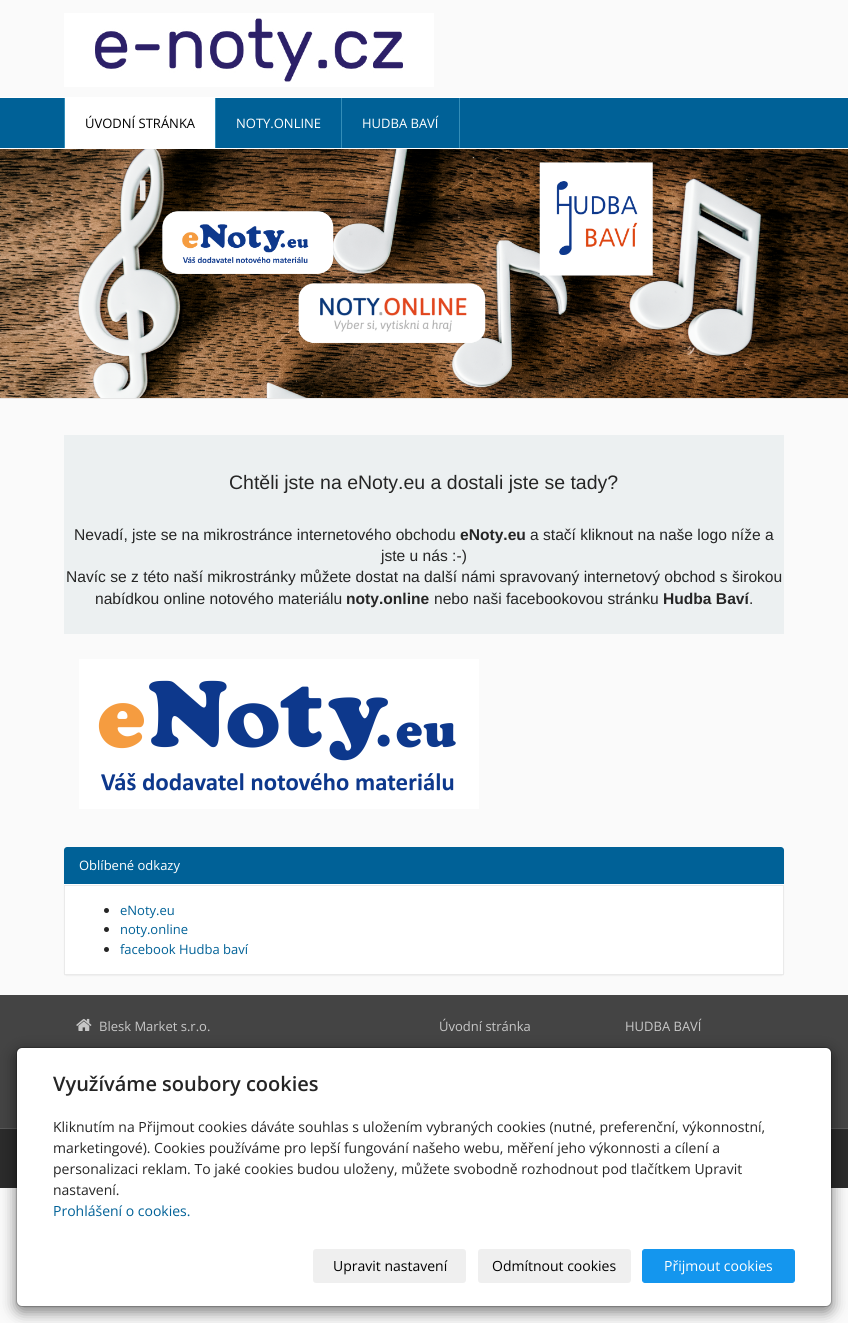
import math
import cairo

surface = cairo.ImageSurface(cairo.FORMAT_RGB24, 848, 1323)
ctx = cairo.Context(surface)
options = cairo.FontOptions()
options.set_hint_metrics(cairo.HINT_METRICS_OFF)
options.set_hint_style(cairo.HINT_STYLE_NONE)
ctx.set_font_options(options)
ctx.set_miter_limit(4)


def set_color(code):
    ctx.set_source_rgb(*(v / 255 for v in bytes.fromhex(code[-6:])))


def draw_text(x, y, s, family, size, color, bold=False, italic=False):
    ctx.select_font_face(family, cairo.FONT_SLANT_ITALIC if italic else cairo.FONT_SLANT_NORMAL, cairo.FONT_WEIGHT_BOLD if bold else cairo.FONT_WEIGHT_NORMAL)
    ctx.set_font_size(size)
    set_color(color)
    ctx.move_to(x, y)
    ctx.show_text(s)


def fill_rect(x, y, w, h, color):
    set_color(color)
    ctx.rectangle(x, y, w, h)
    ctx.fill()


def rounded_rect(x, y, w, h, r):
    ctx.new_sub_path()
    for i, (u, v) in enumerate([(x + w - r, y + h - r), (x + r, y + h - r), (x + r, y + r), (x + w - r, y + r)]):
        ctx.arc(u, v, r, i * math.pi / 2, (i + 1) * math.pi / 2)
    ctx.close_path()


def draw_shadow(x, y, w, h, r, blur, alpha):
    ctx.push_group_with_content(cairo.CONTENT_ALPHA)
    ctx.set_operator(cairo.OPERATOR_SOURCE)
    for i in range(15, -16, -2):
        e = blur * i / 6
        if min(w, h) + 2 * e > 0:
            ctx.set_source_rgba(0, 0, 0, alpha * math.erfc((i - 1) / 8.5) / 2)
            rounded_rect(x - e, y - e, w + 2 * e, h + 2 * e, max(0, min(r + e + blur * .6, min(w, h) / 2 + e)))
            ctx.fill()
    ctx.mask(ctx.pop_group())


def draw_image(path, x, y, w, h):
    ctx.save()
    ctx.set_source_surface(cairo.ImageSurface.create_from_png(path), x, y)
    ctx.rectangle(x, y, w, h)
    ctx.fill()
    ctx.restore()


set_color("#fafafa")
ctx.paint()
draw_image("assets/img1.png", 64, 13, 370, 74)
fill_rect(0, 98, 848, 50, "#006197")
fill_rect(0, 97, 848, 1, "#ffffff")
fill_rect(0, 148, 848, 1, "#ffffff")
fill_rect(215, 98, 1, 50, "#338db8")
fill_rect(64, 98, 1, 50, "#338db8")
fill_rect(65, 98, 150, 50, "#ffffff")
draw_text(85, 128, "ÚVODNÍ STRÁNKA", "Open Sans", 13, "#000000")
fill_rect(341, 98, 1, 50, "#338db8")
draw_text(236, 128, "NOTY.ONLINE", "Open Sans", 13, "#ffffff")
fill_rect(459, 98, 1, 50, "#338db8")
draw_text(362, 128, "HUDBA BAVÍ", "Open Sans", 13, "#ffffff")
draw_image("assets/img2.png", 0, 149, 848, 249)
fill_rect(0, 398, 848, 1, "#e7e7e7")
fill_rect(64, 435, 720, 199, "#ecf0f1")
draw_text(229, 489, "Chtěli jste na eNoty.eu a dostali jste se tady?", "Liberation Sans", 19.5, "#252525")
draw_text(74, 540, "Nevadí, jste se na mikrostránce internetového obchodu", "Liberation Sans", 15.6, "#252525")
draw_text(460, 540, "eNoty.eu", "Liberation Sans", 15.6, "#252525", bold=True)
draw_text(530, 540, "a stačí kliknout na naše logo níže a", "Liberation Sans", 15.6, "#252525")
draw_text(381, 561, "jste u nás :-)", "Liberation Sans", 15.6, "#252525")
draw_text(66, 582, "Navíc se z této naší mikrostránky můžete dostat na další námi spravovaný internetový obchod s širokou", "Liberation Sans", 15.6, "#252525")
draw_text(95, 604, "nabídkou online notového materiálu", "Liberation Sans", 15.6, "#252525")
draw_text(346, 604, "noty.online", "Liberation Sans", 15.6, "#252525", bold=True)
draw_text(434, 604, "nebo naši facebookovou stránku", "Liberation Sans", 15.6, "#252525")
draw_text(663, 604, "Hudba Baví", "Liberation Sans", 15.6, "#252525", bold=True)
draw_text(749, 604, ".", "Liberation Sans", 15.6, "#252525")
draw_image("assets/img3.png", 79, 659, 400, 150)
set_color("#000000")
draw_shadow(64, 848, 720, 128, 3, 0.5, 0.05)
set_color("#ffffff")
rounded_rect(64, 847, 720, 128, 3)
ctx.fill()
set_color("#006197")
ctx.new_path()
ctx.move_to(67, 847)
ctx.line_to(781, 847)
ctx.curve_to(782.5, 847, 784, 848.5, 784, 850)
ctx.line_to(784, 885)
ctx.line_to(64, 885)
ctx.line_to(64, 850)
ctx.curve_to(64, 848.5, 65.5, 847, 67, 847)
ctx.close_path()
ctx.fill()
fill_rect(64, 884, 720, 1, "#ffffff")
draw_text(79, 870, "Oblíbené odkazy", "Open Sans", 13, "#ffffff")
ctx.rectangle(64.5, 885.5, 719, 89)
set_color("#eaeaea")
ctx.set_line_width(1)
ctx.stroke()
set_color("#252525")
ctx.arc(106.5, 910.5, 2.5, 0, 2 * math.pi)
ctx.fill()
draw_text(120, 915, "eNoty.eu", "Open Sans", 13, "#006197")
set_color("#252525")
ctx.new_path()
ctx.arc(106.5, 929.5, 2.5, 0, 2 * math.pi)
ctx.fill()
draw_text(120, 934, "noty.online", "Open Sans", 13, "#006197")
set_color("#252525")
ctx.new_path()
ctx.arc(106.5, 949.5, 2.5, 0, 2 * math.pi)
ctx.fill()
draw_text(120, 954, "facebook Hudba baví", "Open Sans", 13, "#006197")
fill_rect(0, 995, 848, 133, "#444444")
draw_image("assets/img4.png", 76, 1018, 16, 13)
draw_text(99, 1031, "Blesk Market s.r.o.", "Open Sans", 13, "#c7c7c7")
draw_text(439, 1031, "Úvodní stránka", "Open Sans", 13, "#c7c7c7")
draw_text(625, 1031, "HUDBA BAVÍ", "Open Sans", 13, "#c7c7c7")
fill_rect(0, 1129, 848, 59, "#2b2b2b")
fill_rect(0, 1128, 848, 1, "#595959")
set_color("#000000")
draw_shadow(16, 1052, 816, 260, 6, 7.5, 0.5)
set_color("#ffffff")
rounded_rect(17, 1048, 814, 258, 5)
ctx.fill()
rounded_rect(16.5, 1047.5, 815, 259, 5.5)
ctx.set_source_rgba(0, 0, 0, 0.2)
ctx.stroke()
draw_text(53, 1091, "Využíváme soubory cookies", "Open Sans SemiBold", 20, "#252525")
draw_text(53, 1132, "Kliknutím na Přijmout cookies dáváte souhlas s uložením vybraných cookies (nutné, preferenční, výkonnostní,", "Open Sans", 14, "#252525")
draw_text(53, 1153, "marketingové). Cookies používáme pro lepší fungování našeho webu, měření jeho výkonnosti a cílení a", "Open Sans", 14, "#252525")
draw_text(53, 1174, "personalizaci reklam. To jaké cookies budou uloženy, můžete svobodně rozhodnout pod tlačítkem Upravit", "Open Sans", 14, "#252525")
draw_text(53, 1195, "nastavení.", "Open Sans", 14, "#252525")
draw_text(53, 1216, "Prohlášení o cookies.", "Open Sans", 14, "#006197")
set_color("#efefef")
rounded_rect(313, 1249, 153, 34, 3)
ctx.fill()
draw_text(333, 1271, "Upravit nastavení", "Open Sans", 14, "#000000")
set_color("#efefef")
rounded_rect(478, 1249, 153, 34, 3)
ctx.fill()
draw_text(492, 1271, "Odmítnout cookies", "Open Sans", 14, "#000000")
set_color("#1496ee")
rounded_rect(642.5, 1249.5, 152, 33, 2.5)
ctx.fill_preserve()
ctx.stroke()
draw_text(664, 1271, "Přijmout cookies", "Open Sans", 14, "#ffffff")
surface.write_to_png("output.png")
